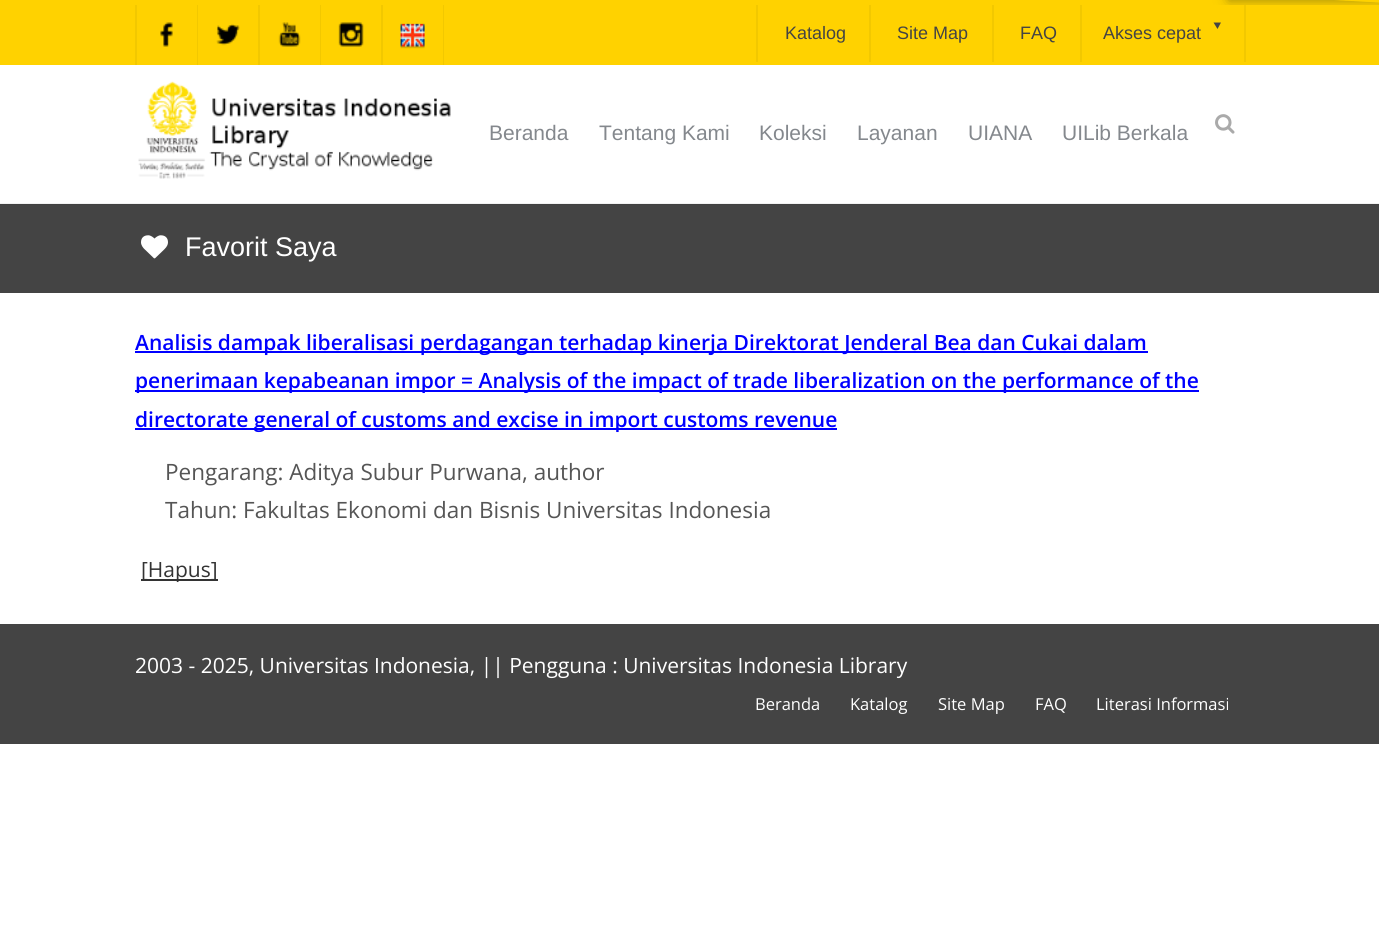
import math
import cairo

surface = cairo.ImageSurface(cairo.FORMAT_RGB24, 1379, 950)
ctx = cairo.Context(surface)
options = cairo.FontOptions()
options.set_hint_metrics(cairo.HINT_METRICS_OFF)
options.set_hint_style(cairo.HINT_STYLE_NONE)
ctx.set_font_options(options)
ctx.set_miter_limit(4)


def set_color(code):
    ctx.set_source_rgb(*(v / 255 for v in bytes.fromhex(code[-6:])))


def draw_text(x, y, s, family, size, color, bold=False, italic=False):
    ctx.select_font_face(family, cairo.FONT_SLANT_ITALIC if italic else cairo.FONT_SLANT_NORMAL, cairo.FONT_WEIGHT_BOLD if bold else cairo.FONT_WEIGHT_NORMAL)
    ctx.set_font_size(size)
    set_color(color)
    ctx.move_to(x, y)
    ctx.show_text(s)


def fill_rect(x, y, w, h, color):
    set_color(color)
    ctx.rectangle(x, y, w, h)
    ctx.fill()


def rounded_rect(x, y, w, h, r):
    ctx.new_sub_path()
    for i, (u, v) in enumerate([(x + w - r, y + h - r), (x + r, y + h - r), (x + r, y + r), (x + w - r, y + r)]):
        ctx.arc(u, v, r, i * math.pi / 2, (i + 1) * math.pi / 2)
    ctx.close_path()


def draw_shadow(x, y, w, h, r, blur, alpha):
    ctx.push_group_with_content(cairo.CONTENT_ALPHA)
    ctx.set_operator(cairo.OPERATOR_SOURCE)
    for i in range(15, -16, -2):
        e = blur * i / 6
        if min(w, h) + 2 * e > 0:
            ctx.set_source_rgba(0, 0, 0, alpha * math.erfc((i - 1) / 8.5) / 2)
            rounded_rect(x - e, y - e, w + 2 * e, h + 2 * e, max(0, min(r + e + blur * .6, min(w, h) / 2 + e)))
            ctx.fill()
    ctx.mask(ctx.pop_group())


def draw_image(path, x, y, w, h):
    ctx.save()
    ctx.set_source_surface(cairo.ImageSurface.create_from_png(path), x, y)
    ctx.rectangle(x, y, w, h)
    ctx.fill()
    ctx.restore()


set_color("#ffffff")
ctx.paint()
fill_rect(0, 203, 1379, 1, "#f2f2f2")
fill_rect(0, 0, 1379, 65, "#ffd200")
fill_rect(1244, 5, 2, 57, "#f2c800")
ctx.save()
ctx.rectangle(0, 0, 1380, 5)
ctx.clip()
ctx.set_fill_rule(cairo.FILL_RULE_EVEN_ODD)
ctx.new_path()
ctx.move_to(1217, 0)
ctx.line_to(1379, 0)
ctx.line_to(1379, 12)
ctx.line_to(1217, 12)
ctx.close_path()
ctx.move_to(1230.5, -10)
ctx.line_to(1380.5, -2)
ctx.line_to(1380, 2.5)
ctx.line_to(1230.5, -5.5)
ctx.close_path()
ctx.clip()
set_color("#b29909")
draw_shadow(1230, -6, 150, 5, 0, 4, 1)
ctx.restore()
set_color("#444444")
ctx.new_path()
ctx.move_to(1221, 22.5)
ctx.line_to(1217.5, 29)
ctx.line_to(1213.5, 22.5)
ctx.close_path()
ctx.fill()
ctx.save()
ctx.rectangle(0, 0, 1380, 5)
ctx.clip()
ctx.set_fill_rule(cairo.FILL_RULE_EVEN_ODD)
ctx.new_path()
ctx.move_to(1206, 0)
ctx.line_to(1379, 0)
ctx.line_to(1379, 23)
ctx.line_to(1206, 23)
ctx.close_path()
ctx.move_to(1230.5, -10)
ctx.line_to(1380.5, -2)
ctx.line_to(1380, 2.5)
ctx.line_to(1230.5, -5.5)
ctx.close_path()
ctx.clip()
set_color("#b29909")
draw_shadow(1230, -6, 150, 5, 0, 7.5, 1)
ctx.restore()
fill_rect(135, 5, 2, 60, "#f2c800")
fill_rect(197, 5, 1, 60, "#f2c800")
draw_image("assets/img1.png", 160, 22, 13, 25)
fill_rect(258, 5, 2, 60, "#f2c800")
draw_image("assets/img2.png", 216, 24, 24, 22)
fill_rect(320, 5, 1, 60, "#f2c800")
draw_image("assets/img3.png", 278, 22, 23, 25)
fill_rect(381, 5, 2, 60, "#f2c800")
draw_image("assets/img4.png", 338, 22, 26, 25)
fill_rect(443, 5, 1, 60, "#f2c800")
draw_image("assets/img5.png", 400, 23, 25, 26)
fill_rect(756, 5, 2, 57, "#f2c800")
draw_text(785, 39, "Katalog", "Liberation Sans", 18, "#444444")
fill_rect(869, 5, 2, 57, "#f2c800")
draw_text(897, 39, "Site Map", "Liberation Sans", 18, "#444444")
fill_rect(992, 5, 2, 57, "#f2c800")
draw_text(1020, 39, "FAQ", "Liberation Sans", 18, "#444444")
fill_rect(1080, 5, 2, 57, "#f2c800")
draw_text(1103, 39, "Akses cepat", "Liberation Sans", 18, "#444444")
draw_image("assets/img6.png", 138, 81, 313, 98)
draw_text(489, 140, "Beranda", "Liberation Sans", 21, "#84888d")
draw_text(599, 140, "Tentang Kami", "Liberation Sans", 21, "#84888d")
draw_text(759, 140, "Koleksi", "Liberation Sans", 21, "#84888d")
draw_text(857, 140, "Layanan", "Liberation Sans", 21, "#84888d")
draw_text(968, 140, "UIANA", "Liberation Sans", 21, "#84888d")
draw_text(1062, 140, "UILib Berkala", "Liberation Sans", 21, "#84888d")
draw_image("assets/img7.png", 1215, 114, 20, 20)
fill_rect(0, 205, 1379, 88, "#444444")
fill_rect(0, 204, 1379, 1, "#414141")
draw_image("assets/img8.png", 141, 235, 27, 24)
draw_text(185, 256, "Favorit Saya", "Liberation Sans", 27, "#ffffff")
fill_rect(135, 351, 1013, 2, "#0000ff")
draw_text(135, 350, "Analisis dampak liberalisasi perdagangan terhadap kinerja Direktorat Jenderal Bea dan Cukai dalam", "Open Sans SemiBold", 21, "#0000ff")
fill_rect(135, 390, 1064, 2, "#0000ff")
draw_text(135, 388, "penerimaan kepabeanan impor = Analysis of the impact of trade liberalization on the performance of the", "Open Sans SemiBold", 21, "#0000ff")
fill_rect(135, 428, 702, 2, "#0000ff")
draw_text(135, 427, "directorate general of customs and excise in import customs revenue", "Open Sans SemiBold", 21, "#0000ff")
draw_text(165, 480, "Pengarang: Aditya Subur Purwana, author", "Open Sans", 22.5, "#555555")
draw_text(165, 518, "Tahun: Fakultas Ekonomi dan Bisnis Universitas Indonesia", "Open Sans", 22.5, "#555555")
fill_rect(141, 579, 77, 2, "#333333")
draw_text(141, 577, "[Hapus]", "Open Sans", 21, "#333333")
fill_rect(0, 624, 1379, 120, "#444444")
draw_text(135, 673, "2003 - 2025, Universitas Indonesia, || Pengguna : Universitas Indonesia Library", "Open Sans", 21, "#ffffff")
draw_text(755, 710, "Beranda", "Open Sans", 16.5, "#ffffff")
draw_text(850, 710, "Katalog", "Open Sans", 16.5, "#ffffff")
draw_text(938, 710, "Site Map", "Open Sans", 16.5, "#ffffff")
draw_text(1035, 710, "FAQ", "Open Sans", 16.5, "#ffffff")
draw_text(1096, 710, "Literasi Informasi", "Open Sans", 16.5, "#ffffff")
surface.write_to_png("output.png")
